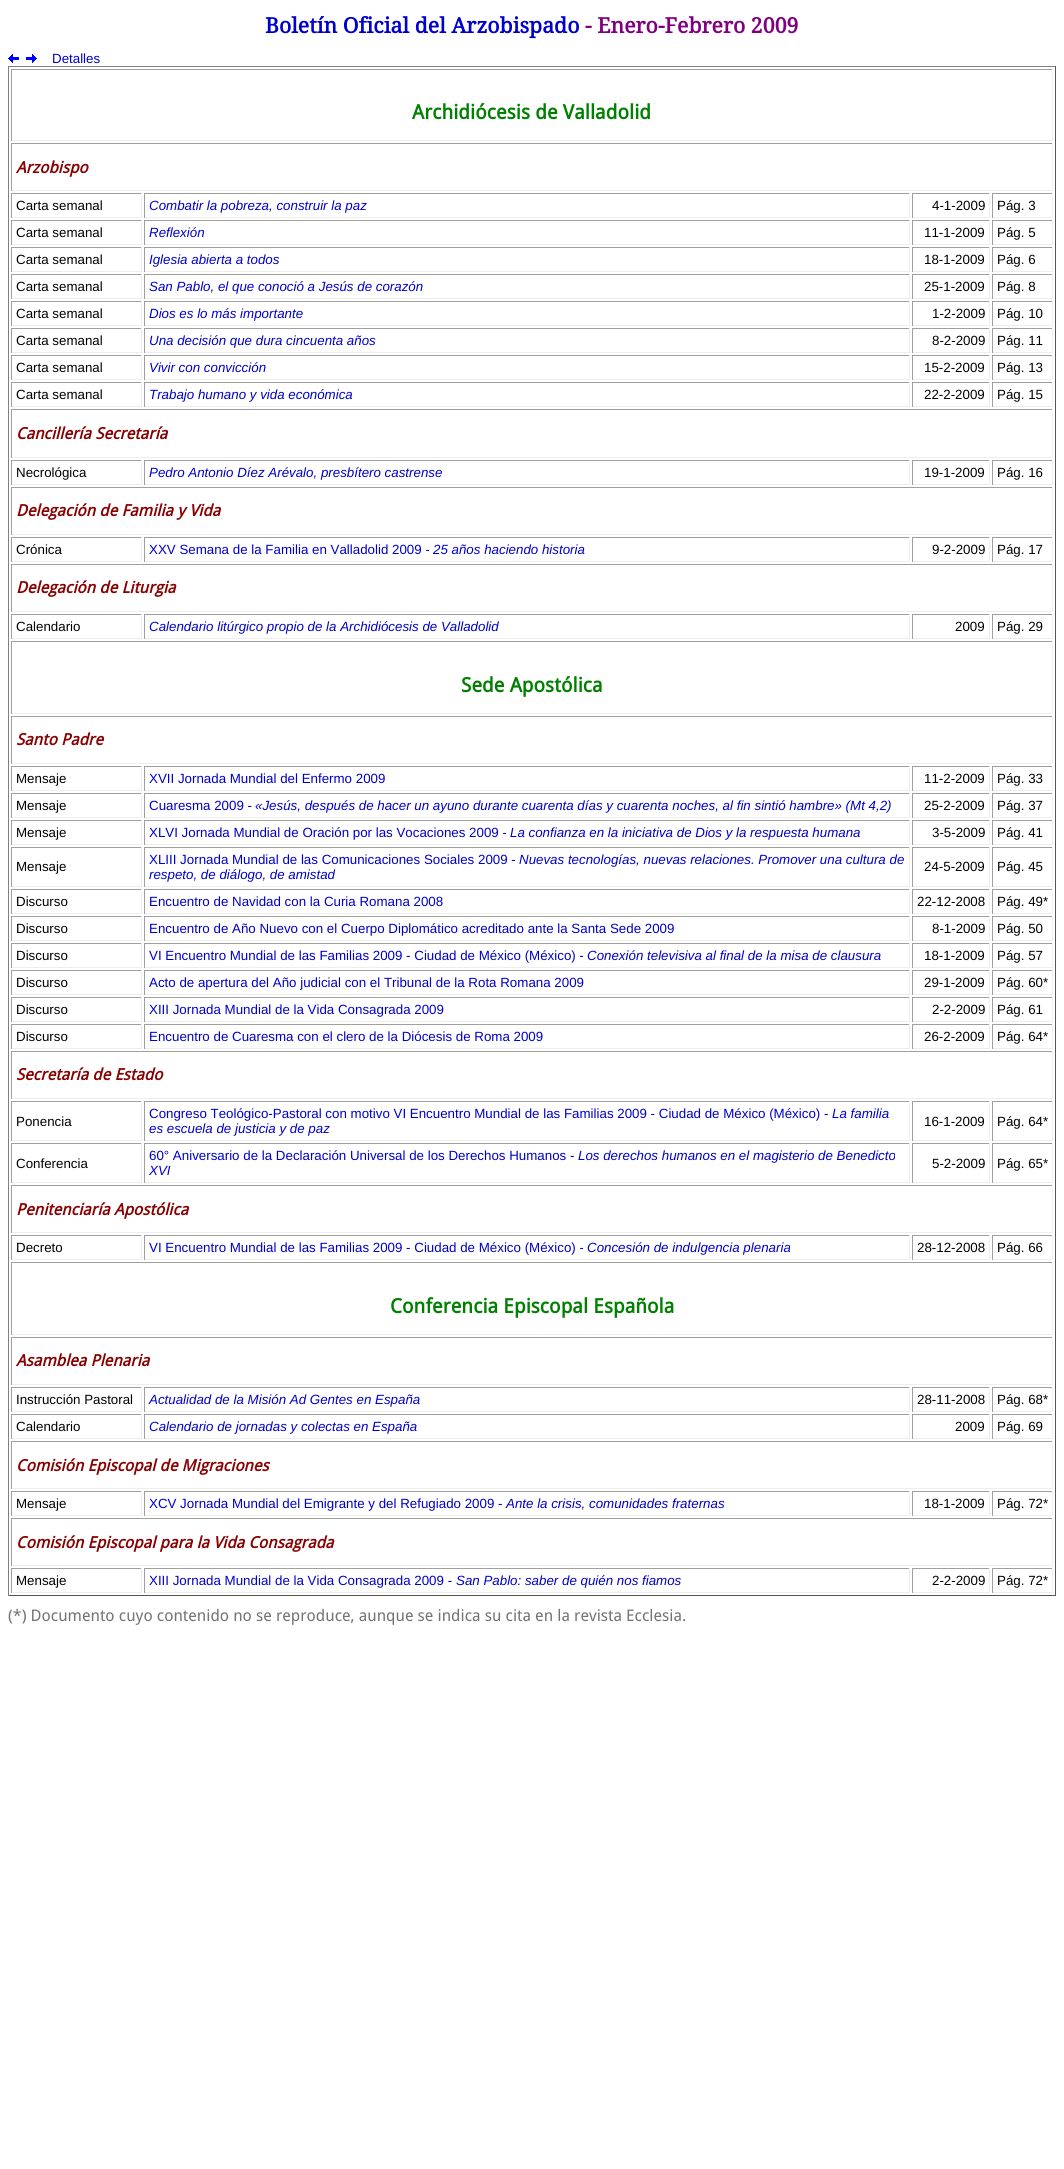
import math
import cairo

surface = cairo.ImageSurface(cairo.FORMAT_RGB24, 1064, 2169)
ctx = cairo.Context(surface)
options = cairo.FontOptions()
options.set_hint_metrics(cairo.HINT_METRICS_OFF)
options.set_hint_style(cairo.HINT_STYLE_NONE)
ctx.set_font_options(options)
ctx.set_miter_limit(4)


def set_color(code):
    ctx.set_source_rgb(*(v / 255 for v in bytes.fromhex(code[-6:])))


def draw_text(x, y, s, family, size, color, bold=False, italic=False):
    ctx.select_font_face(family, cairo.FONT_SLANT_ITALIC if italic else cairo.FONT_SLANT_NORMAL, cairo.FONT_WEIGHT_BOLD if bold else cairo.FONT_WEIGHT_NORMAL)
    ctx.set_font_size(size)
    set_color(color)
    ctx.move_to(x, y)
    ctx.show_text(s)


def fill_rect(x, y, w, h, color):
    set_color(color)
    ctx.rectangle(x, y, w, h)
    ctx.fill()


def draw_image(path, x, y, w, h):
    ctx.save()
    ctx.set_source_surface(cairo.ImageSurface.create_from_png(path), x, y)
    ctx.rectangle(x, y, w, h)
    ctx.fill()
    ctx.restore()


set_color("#ffffff")
ctx.paint()
draw_text(265, 33, "Boletín Oficial del Arzobispado", "Droid Serif", 21.3, "#0000cc", bold=True)
draw_text(585, 33, "- Enero-Febrero 2009", "Droid Serif", 21.3, "#800080", bold=True)
draw_image("assets/img1.png", 8, 54, 11, 9)
draw_image("assets/img2.png", 26, 54, 11, 9)
draw_text(52, 63, "Detalles", "Liberation Sans", 13.33, "#0000cc")
fill_rect(8, 66, 1048, 1, "#808080")
fill_rect(1055, 66, 1, 1530, "#555555")
fill_rect(8, 1595, 1048, 1, "#555555")
fill_rect(8, 66, 1, 1530, "#808080")
fill_rect(11, 69, 1042, 1, "#9f9f9f")
fill_rect(1052, 69, 1, 72, "#eeeeee")
fill_rect(11, 140, 1042, 1, "#eeeeee")
fill_rect(11, 69, 1, 72, "#9f9f9f")
draw_text(412, 119, "Archidiócesis de Valladolid", "Droid Sans", 20, "#008000", bold=True)
fill_rect(11, 143, 1042, 1, "#9f9f9f")
fill_rect(1052, 143, 1, 48, "#eeeeee")
fill_rect(11, 190, 1042, 1, "#eeeeee")
fill_rect(11, 143, 1, 48, "#9f9f9f")
draw_text(16, 173, "Arzobispo", "Droid Sans", 16, "#880000", bold=True, italic=True)
fill_rect(11, 193, 131, 1, "#9f9f9f")
fill_rect(141, 193, 1, 25, "#eeeeee")
fill_rect(11, 217, 131, 1, "#eeeeee")
fill_rect(11, 193, 1, 25, "#9f9f9f")
draw_text(16, 210, "Carta semanal", "Liberation Sans", 13.33, "#000000")
fill_rect(144, 193, 766, 1, "#9f9f9f")
fill_rect(909, 193, 1, 25, "#eeeeee")
fill_rect(144, 217, 766, 1, "#eeeeee")
fill_rect(144, 193, 1, 25, "#9f9f9f")
draw_text(149, 210, "Combatir la pobreza, construir la paz", "Liberation Sans", 13.33, "#0000cc", italic=True)
fill_rect(912, 193, 78, 1, "#9f9f9f")
fill_rect(989, 193, 1, 25, "#eeeeee")
fill_rect(912, 217, 78, 1, "#eeeeee")
fill_rect(912, 193, 1, 25, "#9f9f9f")
draw_text(932, 210, "4-1-2009", "Liberation Sans", 13.33, "#000000")
fill_rect(992, 193, 61, 1, "#9f9f9f")
fill_rect(1052, 193, 1, 25, "#eeeeee")
fill_rect(992, 217, 61, 1, "#eeeeee")
fill_rect(992, 193, 1, 25, "#9f9f9f")
draw_text(997, 210, "Pág. 3", "Liberation Sans", 13.33, "#000000")
fill_rect(11, 220, 131, 1, "#9f9f9f")
fill_rect(141, 220, 1, 25, "#eeeeee")
fill_rect(11, 244, 131, 1, "#eeeeee")
fill_rect(11, 220, 1, 25, "#9f9f9f")
draw_text(16, 237, "Carta semanal", "Liberation Sans", 13.33, "#000000")
fill_rect(144, 220, 766, 1, "#9f9f9f")
fill_rect(909, 220, 1, 25, "#eeeeee")
fill_rect(144, 244, 766, 1, "#eeeeee")
fill_rect(144, 220, 1, 25, "#9f9f9f")
draw_text(149, 237, "Reflexión", "Liberation Sans", 13.33, "#0000cc", italic=True)
fill_rect(912, 220, 78, 1, "#9f9f9f")
fill_rect(989, 220, 1, 25, "#eeeeee")
fill_rect(912, 244, 78, 1, "#eeeeee")
fill_rect(912, 220, 1, 25, "#9f9f9f")
draw_text(924, 237, "11-1-2009", "Liberation Sans", 13.33, "#000000")
fill_rect(992, 220, 61, 1, "#9f9f9f")
fill_rect(1052, 220, 1, 25, "#eeeeee")
fill_rect(992, 244, 61, 1, "#eeeeee")
fill_rect(992, 220, 1, 25, "#9f9f9f")
draw_text(997, 237, "Pág. 5", "Liberation Sans", 13.33, "#000000")
fill_rect(11, 247, 131, 1, "#9f9f9f")
fill_rect(141, 247, 1, 25, "#eeeeee")
fill_rect(11, 271, 131, 1, "#eeeeee")
fill_rect(11, 247, 1, 25, "#9f9f9f")
draw_text(16, 264, "Carta semanal", "Liberation Sans", 13.33, "#000000")
fill_rect(144, 247, 766, 1, "#9f9f9f")
fill_rect(909, 247, 1, 25, "#eeeeee")
fill_rect(144, 271, 766, 1, "#eeeeee")
fill_rect(144, 247, 1, 25, "#9f9f9f")
draw_text(149, 264, "Iglesia abierta a todos", "Liberation Sans", 13.33, "#0000cc", italic=True)
fill_rect(912, 247, 78, 1, "#9f9f9f")
fill_rect(989, 247, 1, 25, "#eeeeee")
fill_rect(912, 271, 78, 1, "#eeeeee")
fill_rect(912, 247, 1, 25, "#9f9f9f")
draw_text(924, 264, "18-1-2009", "Liberation Sans", 13.33, "#000000")
fill_rect(992, 247, 61, 1, "#9f9f9f")
fill_rect(1052, 247, 1, 25, "#eeeeee")
fill_rect(992, 271, 61, 1, "#eeeeee")
fill_rect(992, 247, 1, 25, "#9f9f9f")
draw_text(997, 264, "Pág. 6", "Liberation Sans", 13.33, "#000000")
fill_rect(11, 274, 131, 1, "#9f9f9f")
fill_rect(141, 274, 1, 25, "#eeeeee")
fill_rect(11, 298, 131, 1, "#eeeeee")
fill_rect(11, 274, 1, 25, "#9f9f9f")
draw_text(16, 291, "Carta semanal", "Liberation Sans", 13.33, "#000000")
fill_rect(144, 274, 766, 1, "#9f9f9f")
fill_rect(909, 274, 1, 25, "#eeeeee")
fill_rect(144, 298, 766, 1, "#eeeeee")
fill_rect(144, 274, 1, 25, "#9f9f9f")
draw_text(149, 291, "San Pablo, el que conoció a Jesús de corazón", "Liberation Sans", 13.33, "#0000cc", italic=True)
fill_rect(912, 274, 78, 1, "#9f9f9f")
fill_rect(989, 274, 1, 25, "#eeeeee")
fill_rect(912, 298, 78, 1, "#eeeeee")
fill_rect(912, 274, 1, 25, "#9f9f9f")
draw_text(924, 291, "25-1-2009", "Liberation Sans", 13.33, "#000000")
fill_rect(992, 274, 61, 1, "#9f9f9f")
fill_rect(1052, 274, 1, 25, "#eeeeee")
fill_rect(992, 298, 61, 1, "#eeeeee")
fill_rect(992, 274, 1, 25, "#9f9f9f")
draw_text(997, 291, "Pág. 8", "Liberation Sans", 13.33, "#000000")
fill_rect(11, 301, 131, 1, "#9f9f9f")
fill_rect(141, 301, 1, 25, "#eeeeee")
fill_rect(11, 325, 131, 1, "#eeeeee")
fill_rect(11, 301, 1, 25, "#9f9f9f")
draw_text(16, 318, "Carta semanal", "Liberation Sans", 13.33, "#000000")
fill_rect(144, 301, 766, 1, "#9f9f9f")
fill_rect(909, 301, 1, 25, "#eeeeee")
fill_rect(144, 325, 766, 1, "#eeeeee")
fill_rect(144, 301, 1, 25, "#9f9f9f")
draw_text(149, 318, "Dios es lo más importante", "Liberation Sans", 13.33, "#0000cc", italic=True)
fill_rect(912, 301, 78, 1, "#9f9f9f")
fill_rect(989, 301, 1, 25, "#eeeeee")
fill_rect(912, 325, 78, 1, "#eeeeee")
fill_rect(912, 301, 1, 25, "#9f9f9f")
draw_text(932, 318, "1-2-2009", "Liberation Sans", 13.33, "#000000")
fill_rect(992, 301, 61, 1, "#9f9f9f")
fill_rect(1052, 301, 1, 25, "#eeeeee")
fill_rect(992, 325, 61, 1, "#eeeeee")
fill_rect(992, 301, 1, 25, "#9f9f9f")
draw_text(997, 318, "Pág. 10", "Liberation Sans", 13.33, "#000000")
fill_rect(11, 328, 131, 1, "#9f9f9f")
fill_rect(141, 328, 1, 25, "#eeeeee")
fill_rect(11, 352, 131, 1, "#eeeeee")
fill_rect(11, 328, 1, 25, "#9f9f9f")
draw_text(16, 345, "Carta semanal", "Liberation Sans", 13.33, "#000000")
fill_rect(144, 328, 766, 1, "#9f9f9f")
fill_rect(909, 328, 1, 25, "#eeeeee")
fill_rect(144, 352, 766, 1, "#eeeeee")
fill_rect(144, 328, 1, 25, "#9f9f9f")
draw_text(149, 345, "Una decisión que dura cincuenta años", "Liberation Sans", 13.33, "#0000cc", italic=True)
fill_rect(912, 328, 78, 1, "#9f9f9f")
fill_rect(989, 328, 1, 25, "#eeeeee")
fill_rect(912, 352, 78, 1, "#eeeeee")
fill_rect(912, 328, 1, 25, "#9f9f9f")
draw_text(932, 345, "8-2-2009", "Liberation Sans", 13.33, "#000000")
fill_rect(992, 328, 61, 1, "#9f9f9f")
fill_rect(1052, 328, 1, 25, "#eeeeee")
fill_rect(992, 352, 61, 1, "#eeeeee")
fill_rect(992, 328, 1, 25, "#9f9f9f")
draw_text(997, 345, "Pág. 11", "Liberation Sans", 13.33, "#000000")
fill_rect(11, 355, 131, 1, "#9f9f9f")
fill_rect(141, 355, 1, 25, "#eeeeee")
fill_rect(11, 379, 131, 1, "#eeeeee")
fill_rect(11, 355, 1, 25, "#9f9f9f")
draw_text(16, 372, "Carta semanal", "Liberation Sans", 13.33, "#000000")
fill_rect(144, 355, 766, 1, "#9f9f9f")
fill_rect(909, 355, 1, 25, "#eeeeee")
fill_rect(144, 379, 766, 1, "#eeeeee")
fill_rect(144, 355, 1, 25, "#9f9f9f")
draw_text(149, 372, "Vivir con convicción", "Liberation Sans", 13.33, "#0000cc", italic=True)
fill_rect(912, 355, 78, 1, "#9f9f9f")
fill_rect(989, 355, 1, 25, "#eeeeee")
fill_rect(912, 379, 78, 1, "#eeeeee")
fill_rect(912, 355, 1, 25, "#9f9f9f")
draw_text(924, 372, "15-2-2009", "Liberation Sans", 13.33, "#000000")
fill_rect(992, 355, 61, 1, "#9f9f9f")
fill_rect(1052, 355, 1, 25, "#eeeeee")
fill_rect(992, 379, 61, 1, "#eeeeee")
fill_rect(992, 355, 1, 25, "#9f9f9f")
draw_text(997, 372, "Pág. 13", "Liberation Sans", 13.33, "#000000")
fill_rect(11, 382, 131, 1, "#9f9f9f")
fill_rect(141, 382, 1, 25, "#eeeeee")
fill_rect(11, 406, 131, 1, "#eeeeee")
fill_rect(11, 382, 1, 25, "#9f9f9f")
draw_text(16, 399, "Carta semanal", "Liberation Sans", 13.33, "#000000")
fill_rect(144, 382, 766, 1, "#9f9f9f")
fill_rect(909, 382, 1, 25, "#eeeeee")
fill_rect(144, 406, 766, 1, "#eeeeee")
fill_rect(144, 382, 1, 25, "#9f9f9f")
draw_text(149, 399, "Trabajo humano y vida económica", "Liberation Sans", 13.33, "#0000cc", italic=True)
fill_rect(912, 382, 78, 1, "#9f9f9f")
fill_rect(989, 382, 1, 25, "#eeeeee")
fill_rect(912, 406, 78, 1, "#eeeeee")
fill_rect(912, 382, 1, 25, "#9f9f9f")
draw_text(924, 399, "22-2-2009", "Liberation Sans", 13.33, "#000000")
fill_rect(992, 382, 61, 1, "#9f9f9f")
fill_rect(1052, 382, 1, 25, "#eeeeee")
fill_rect(992, 406, 61, 1, "#eeeeee")
fill_rect(992, 382, 1, 25, "#9f9f9f")
draw_text(997, 399, "Pág. 15", "Liberation Sans", 13.33, "#000000")
fill_rect(11, 409, 1042, 1, "#9f9f9f")
fill_rect(1052, 409, 1, 49, "#eeeeee")
fill_rect(11, 457, 1042, 1, "#eeeeee")
fill_rect(11, 409, 1, 49, "#9f9f9f")
draw_text(16, 439, "Cancillería Secretaría", "Droid Sans", 16, "#880000", bold=True, italic=True)
fill_rect(11, 460, 131, 1, "#9f9f9f")
fill_rect(141, 460, 1, 25, "#eeeeee")
fill_rect(11, 484, 131, 1, "#eeeeee")
fill_rect(11, 460, 1, 25, "#9f9f9f")
draw_text(16, 477, "Necrológica", "Liberation Sans", 13.33, "#000000")
fill_rect(144, 460, 766, 1, "#9f9f9f")
fill_rect(909, 460, 1, 25, "#eeeeee")
fill_rect(144, 484, 766, 1, "#eeeeee")
fill_rect(144, 460, 1, 25, "#9f9f9f")
draw_text(149, 477, "Pedro Antonio Díez Arévalo, presbítero castrense", "Liberation Sans", 13.33, "#0000cc", italic=True)
fill_rect(912, 460, 78, 1, "#9f9f9f")
fill_rect(989, 460, 1, 25, "#eeeeee")
fill_rect(912, 484, 78, 1, "#eeeeee")
fill_rect(912, 460, 1, 25, "#9f9f9f")
draw_text(924, 477, "19-1-2009", "Liberation Sans", 13.33, "#000000")
fill_rect(992, 460, 61, 1, "#9f9f9f")
fill_rect(1052, 460, 1, 25, "#eeeeee")
fill_rect(992, 484, 61, 1, "#eeeeee")
fill_rect(992, 460, 1, 25, "#9f9f9f")
draw_text(997, 477, "Pág. 16", "Liberation Sans", 13.33, "#000000")
fill_rect(11, 487, 1042, 1, "#9f9f9f")
fill_rect(1052, 487, 1, 48, "#eeeeee")
fill_rect(11, 534, 1042, 1, "#eeeeee")
fill_rect(11, 487, 1, 48, "#9f9f9f")
draw_text(16, 516, "Delegación de Familia y Vida", "Droid Sans", 16, "#880000", bold=True, italic=True)
fill_rect(11, 537, 131, 1, "#9f9f9f")
fill_rect(141, 537, 1, 25, "#eeeeee")
fill_rect(11, 561, 131, 1, "#eeeeee")
fill_rect(11, 537, 1, 25, "#9f9f9f")
draw_text(16, 554, "Crónica", "Liberation Sans", 13.33, "#000000")
fill_rect(144, 537, 766, 1, "#9f9f9f")
fill_rect(909, 537, 1, 25, "#eeeeee")
fill_rect(144, 561, 766, 1, "#eeeeee")
fill_rect(144, 537, 1, 25, "#9f9f9f")
draw_text(149, 554, "XXV Semana de la Familia en Valladolid 2009 -", "Liberation Sans", 13.33, "#0000cc")
draw_text(433, 554, "25 años haciendo historia", "Liberation Sans", 13.33, "#0000cc", italic=True)
fill_rect(912, 537, 78, 1, "#9f9f9f")
fill_rect(989, 537, 1, 25, "#eeeeee")
fill_rect(912, 561, 78, 1, "#eeeeee")
fill_rect(912, 537, 1, 25, "#9f9f9f")
draw_text(932, 554, "9-2-2009", "Liberation Sans", 13.33, "#000000")
fill_rect(992, 537, 61, 1, "#9f9f9f")
fill_rect(1052, 537, 1, 25, "#eeeeee")
fill_rect(992, 561, 61, 1, "#eeeeee")
fill_rect(992, 537, 1, 25, "#9f9f9f")
draw_text(997, 554, "Pág. 17", "Liberation Sans", 13.33, "#000000")
fill_rect(11, 564, 1042, 1, "#9f9f9f")
fill_rect(1052, 564, 1, 48, "#eeeeee")
fill_rect(11, 611, 1042, 1, "#eeeeee")
fill_rect(11, 564, 1, 48, "#9f9f9f")
draw_text(16, 593, "Delegación de Liturgia", "Droid Sans", 16, "#880000", bold=True, italic=True)
fill_rect(11, 614, 131, 1, "#9f9f9f")
fill_rect(141, 614, 1, 25, "#eeeeee")
fill_rect(11, 638, 131, 1, "#eeeeee")
fill_rect(11, 614, 1, 25, "#9f9f9f")
draw_text(16, 631, "Calendario", "Liberation Sans", 13.33, "#000000")
fill_rect(144, 614, 766, 1, "#9f9f9f")
fill_rect(909, 614, 1, 25, "#eeeeee")
fill_rect(144, 638, 766, 1, "#eeeeee")
fill_rect(144, 614, 1, 25, "#9f9f9f")
draw_text(149, 631, "Calendario litúrgico propio de la Archidiócesis de Valladolid", "Liberation Sans", 13.33, "#0000cc", italic=True)
fill_rect(912, 614, 78, 1, "#9f9f9f")
fill_rect(989, 614, 1, 25, "#eeeeee")
fill_rect(912, 638, 78, 1, "#eeeeee")
fill_rect(912, 614, 1, 25, "#9f9f9f")
draw_text(955, 631, "2009", "Liberation Sans", 13.33, "#000000")
fill_rect(992, 614, 61, 1, "#9f9f9f")
fill_rect(1052, 614, 1, 25, "#eeeeee")
fill_rect(992, 638, 61, 1, "#eeeeee")
fill_rect(992, 614, 1, 25, "#9f9f9f")
draw_text(997, 631, "Pág. 29", "Liberation Sans", 13.33, "#000000")
fill_rect(11, 641, 1042, 1, "#9f9f9f")
fill_rect(1052, 641, 1, 73, "#eeeeee")
fill_rect(11, 713, 1042, 1, "#eeeeee")
fill_rect(11, 641, 1, 73, "#9f9f9f")
draw_text(461, 692, "Sede Apostólica", "Droid Sans", 20, "#008000", bold=True)
fill_rect(11, 716, 1042, 1, "#9f9f9f")
fill_rect(1052, 716, 1, 48, "#eeeeee")
fill_rect(11, 763, 1042, 1, "#eeeeee")
fill_rect(11, 716, 1, 48, "#9f9f9f")
draw_text(16, 745, "Santo Padre", "Droid Sans", 16, "#880000", bold=True, italic=True)
fill_rect(11, 766, 131, 1, "#9f9f9f")
fill_rect(141, 766, 1, 25, "#eeeeee")
fill_rect(11, 790, 131, 1, "#eeeeee")
fill_rect(11, 766, 1, 25, "#9f9f9f")
draw_text(16, 783, "Mensaje", "Liberation Sans", 13.33, "#000000")
fill_rect(144, 766, 766, 1, "#9f9f9f")
fill_rect(909, 766, 1, 25, "#eeeeee")
fill_rect(144, 790, 766, 1, "#eeeeee")
fill_rect(144, 766, 1, 25, "#9f9f9f")
draw_text(149, 783, "XVII Jornada Mundial del Enfermo 2009", "Liberation Sans", 13.33, "#0000cc")
fill_rect(912, 766, 78, 1, "#9f9f9f")
fill_rect(989, 766, 1, 25, "#eeeeee")
fill_rect(912, 790, 78, 1, "#eeeeee")
fill_rect(912, 766, 1, 25, "#9f9f9f")
draw_text(924, 783, "11-2-2009", "Liberation Sans", 13.33, "#000000")
fill_rect(992, 766, 61, 1, "#9f9f9f")
fill_rect(1052, 766, 1, 25, "#eeeeee")
fill_rect(992, 790, 61, 1, "#eeeeee")
fill_rect(992, 766, 1, 25, "#9f9f9f")
draw_text(997, 783, "Pág. 33", "Liberation Sans", 13.33, "#000000")
fill_rect(11, 793, 131, 1, "#9f9f9f")
fill_rect(141, 793, 1, 25, "#eeeeee")
fill_rect(11, 817, 131, 1, "#eeeeee")
fill_rect(11, 793, 1, 25, "#9f9f9f")
draw_text(16, 810, "Mensaje", "Liberation Sans", 13.33, "#000000")
fill_rect(144, 793, 766, 1, "#9f9f9f")
fill_rect(909, 793, 1, 25, "#eeeeee")
fill_rect(144, 817, 766, 1, "#eeeeee")
fill_rect(144, 793, 1, 25, "#9f9f9f")
draw_text(149, 810, "Cuaresma 2009 -", "Liberation Sans", 13.33, "#0000cc")
draw_text(255, 810, "«Jesús, después de hacer un ayuno durante cuarenta días y cuarenta noches, al fin sintió hambre» (Mt 4,2)", "Liberation Sans", 13.33, "#0000cc", italic=True)
fill_rect(912, 793, 78, 1, "#9f9f9f")
fill_rect(989, 793, 1, 25, "#eeeeee")
fill_rect(912, 817, 78, 1, "#eeeeee")
fill_rect(912, 793, 1, 25, "#9f9f9f")
draw_text(924, 810, "25-2-2009", "Liberation Sans", 13.33, "#000000")
fill_rect(992, 793, 61, 1, "#9f9f9f")
fill_rect(1052, 793, 1, 25, "#eeeeee")
fill_rect(992, 817, 61, 1, "#eeeeee")
fill_rect(992, 793, 1, 25, "#9f9f9f")
draw_text(997, 810, "Pág. 37", "Liberation Sans", 13.33, "#000000")
fill_rect(11, 820, 131, 1, "#9f9f9f")
fill_rect(141, 820, 1, 25, "#eeeeee")
fill_rect(11, 844, 131, 1, "#eeeeee")
fill_rect(11, 820, 1, 25, "#9f9f9f")
draw_text(16, 837, "Mensaje", "Liberation Sans", 13.33, "#000000")
fill_rect(144, 820, 766, 1, "#9f9f9f")
fill_rect(909, 820, 1, 25, "#eeeeee")
fill_rect(144, 844, 766, 1, "#eeeeee")
fill_rect(144, 820, 1, 25, "#9f9f9f")
draw_text(149, 837, "XLVI Jornada Mundial de Oración por las Vocaciones 2009 -", "Liberation Sans", 13.33, "#0000cc")
draw_text(510, 837, "La confianza en la iniciativa de Dios y la respuesta humana", "Liberation Sans", 13.33, "#0000cc", italic=True)
fill_rect(912, 820, 78, 1, "#9f9f9f")
fill_rect(989, 820, 1, 25, "#eeeeee")
fill_rect(912, 844, 78, 1, "#eeeeee")
fill_rect(912, 820, 1, 25, "#9f9f9f")
draw_text(932, 837, "3-5-2009", "Liberation Sans", 13.33, "#000000")
fill_rect(992, 820, 61, 1, "#9f9f9f")
fill_rect(1052, 820, 1, 25, "#eeeeee")
fill_rect(992, 844, 61, 1, "#eeeeee")
fill_rect(992, 820, 1, 25, "#9f9f9f")
draw_text(997, 837, "Pág. 41", "Liberation Sans", 13.33, "#000000")
fill_rect(11, 847, 131, 1, "#9f9f9f")
fill_rect(141, 847, 1, 40, "#eeeeee")
fill_rect(11, 886, 131, 1, "#eeeeee")
fill_rect(11, 847, 1, 40, "#9f9f9f")
draw_text(16, 871, "Mensaje", "Liberation Sans", 13.33, "#000000")
fill_rect(144, 847, 766, 1, "#9f9f9f")
fill_rect(909, 847, 1, 40, "#eeeeee")
fill_rect(144, 886, 766, 1, "#eeeeee")
fill_rect(144, 847, 1, 40, "#9f9f9f")
draw_text(149, 864, "XLIII Jornada Mundial de las Comunicaciones Sociales 2009 -", "Liberation Sans", 13.33, "#0000cc")
draw_text(519, 864, "Nuevas tecnologías, nuevas relaciones. Promover una cultura de", "Liberation Sans", 13.33, "#0000cc", italic=True)
draw_text(149, 879, "respeto, de diálogo, de amistad", "Liberation Sans", 13.33, "#0000cc", italic=True)
fill_rect(912, 847, 78, 1, "#9f9f9f")
fill_rect(989, 847, 1, 40, "#eeeeee")
fill_rect(912, 886, 78, 1, "#eeeeee")
fill_rect(912, 847, 1, 40, "#9f9f9f")
draw_text(924, 871, "24-5-2009", "Liberation Sans", 13.33, "#000000")
fill_rect(992, 847, 61, 1, "#9f9f9f")
fill_rect(1052, 847, 1, 40, "#eeeeee")
fill_rect(992, 886, 61, 1, "#eeeeee")
fill_rect(992, 847, 1, 40, "#9f9f9f")
draw_text(997, 871, "Pág. 45", "Liberation Sans", 13.33, "#000000")
fill_rect(11, 889, 131, 1, "#9f9f9f")
fill_rect(141, 889, 1, 25, "#eeeeee")
fill_rect(11, 913, 131, 1, "#eeeeee")
fill_rect(11, 889, 1, 25, "#9f9f9f")
draw_text(16, 906, "Discurso", "Liberation Sans", 13.33, "#000000")
fill_rect(144, 889, 766, 1, "#9f9f9f")
fill_rect(909, 889, 1, 25, "#eeeeee")
fill_rect(144, 913, 766, 1, "#eeeeee")
fill_rect(144, 889, 1, 25, "#9f9f9f")
draw_text(149, 906, "Encuentro de Navidad con la Curia Romana 2008", "Liberation Sans", 13.33, "#0000cc")
fill_rect(912, 889, 78, 1, "#9f9f9f")
fill_rect(989, 889, 1, 25, "#eeeeee")
fill_rect(912, 913, 78, 1, "#eeeeee")
fill_rect(912, 889, 1, 25, "#9f9f9f")
draw_text(917, 906, "22-12-2008", "Liberation Sans", 13.33, "#000000")
fill_rect(992, 889, 61, 1, "#9f9f9f")
fill_rect(1052, 889, 1, 25, "#eeeeee")
fill_rect(992, 913, 61, 1, "#eeeeee")
fill_rect(992, 889, 1, 25, "#9f9f9f")
draw_text(997, 906, "Pág. 49*", "Liberation Sans", 13.33, "#000000")
fill_rect(11, 916, 131, 1, "#9f9f9f")
fill_rect(141, 916, 1, 25, "#eeeeee")
fill_rect(11, 940, 131, 1, "#eeeeee")
fill_rect(11, 916, 1, 25, "#9f9f9f")
draw_text(16, 933, "Discurso", "Liberation Sans", 13.33, "#000000")
fill_rect(144, 916, 766, 1, "#9f9f9f")
fill_rect(909, 916, 1, 25, "#eeeeee")
fill_rect(144, 940, 766, 1, "#eeeeee")
fill_rect(144, 916, 1, 25, "#9f9f9f")
draw_text(149, 933, "Encuentro de Año Nuevo con el Cuerpo Diplomático acreditado ante la Santa Sede 2009", "Liberation Sans", 13.33, "#0000cc")
fill_rect(912, 916, 78, 1, "#9f9f9f")
fill_rect(989, 916, 1, 25, "#eeeeee")
fill_rect(912, 940, 78, 1, "#eeeeee")
fill_rect(912, 916, 1, 25, "#9f9f9f")
draw_text(932, 933, "8-1-2009", "Liberation Sans", 13.33, "#000000")
fill_rect(992, 916, 61, 1, "#9f9f9f")
fill_rect(1052, 916, 1, 25, "#eeeeee")
fill_rect(992, 940, 61, 1, "#eeeeee")
fill_rect(992, 916, 1, 25, "#9f9f9f")
draw_text(997, 933, "Pág. 50", "Liberation Sans", 13.33, "#000000")
fill_rect(11, 943, 131, 1, "#9f9f9f")
fill_rect(141, 943, 1, 25, "#eeeeee")
fill_rect(11, 967, 131, 1, "#eeeeee")
fill_rect(11, 943, 1, 25, "#9f9f9f")
draw_text(16, 960, "Discurso", "Liberation Sans", 13.33, "#000000")
fill_rect(144, 943, 766, 1, "#9f9f9f")
fill_rect(909, 943, 1, 25, "#eeeeee")
fill_rect(144, 967, 766, 1, "#eeeeee")
fill_rect(144, 943, 1, 25, "#9f9f9f")
draw_text(149, 960, "VI Encuentro Mundial de las Familias 2009 - Ciudad de México (México) -", "Liberation Sans", 13.33, "#0000cc")
draw_text(587, 960, "Conexión televisiva al final de la misa de clausura", "Liberation Sans", 13.33, "#0000cc", italic=True)
fill_rect(912, 943, 78, 1, "#9f9f9f")
fill_rect(989, 943, 1, 25, "#eeeeee")
fill_rect(912, 967, 78, 1, "#eeeeee")
fill_rect(912, 943, 1, 25, "#9f9f9f")
draw_text(924, 960, "18-1-2009", "Liberation Sans", 13.33, "#000000")
fill_rect(992, 943, 61, 1, "#9f9f9f")
fill_rect(1052, 943, 1, 25, "#eeeeee")
fill_rect(992, 967, 61, 1, "#eeeeee")
fill_rect(992, 943, 1, 25, "#9f9f9f")
draw_text(997, 960, "Pág. 57", "Liberation Sans", 13.33, "#000000")
fill_rect(11, 970, 131, 1, "#9f9f9f")
fill_rect(141, 970, 1, 25, "#eeeeee")
fill_rect(11, 994, 131, 1, "#eeeeee")
fill_rect(11, 970, 1, 25, "#9f9f9f")
draw_text(16, 987, "Discurso", "Liberation Sans", 13.33, "#000000")
fill_rect(144, 970, 766, 1, "#9f9f9f")
fill_rect(909, 970, 1, 25, "#eeeeee")
fill_rect(144, 994, 766, 1, "#eeeeee")
fill_rect(144, 970, 1, 25, "#9f9f9f")
draw_text(149, 987, "Acto de apertura del Año judicial con el Tribunal de la Rota Romana 2009", "Liberation Sans", 13.33, "#0000cc")
fill_rect(912, 970, 78, 1, "#9f9f9f")
fill_rect(989, 970, 1, 25, "#eeeeee")
fill_rect(912, 994, 78, 1, "#eeeeee")
fill_rect(912, 970, 1, 25, "#9f9f9f")
draw_text(924, 987, "29-1-2009", "Liberation Sans", 13.33, "#000000")
fill_rect(992, 970, 61, 1, "#9f9f9f")
fill_rect(1052, 970, 1, 25, "#eeeeee")
fill_rect(992, 994, 61, 1, "#eeeeee")
fill_rect(992, 970, 1, 25, "#9f9f9f")
draw_text(997, 987, "Pág. 60*", "Liberation Sans", 13.33, "#000000")
fill_rect(11, 997, 131, 1, "#9f9f9f")
fill_rect(141, 997, 1, 25, "#eeeeee")
fill_rect(11, 1021, 131, 1, "#eeeeee")
fill_rect(11, 997, 1, 25, "#9f9f9f")
draw_text(16, 1014, "Discurso", "Liberation Sans", 13.33, "#000000")
fill_rect(144, 997, 766, 1, "#9f9f9f")
fill_rect(909, 997, 1, 25, "#eeeeee")
fill_rect(144, 1021, 766, 1, "#eeeeee")
fill_rect(144, 997, 1, 25, "#9f9f9f")
draw_text(149, 1014, "XIII Jornada Mundial de la Vida Consagrada 2009", "Liberation Sans", 13.33, "#0000cc")
fill_rect(912, 997, 78, 1, "#9f9f9f")
fill_rect(989, 997, 1, 25, "#eeeeee")
fill_rect(912, 1021, 78, 1, "#eeeeee")
fill_rect(912, 997, 1, 25, "#9f9f9f")
draw_text(932, 1014, "2-2-2009", "Liberation Sans", 13.33, "#000000")
fill_rect(992, 997, 61, 1, "#9f9f9f")
fill_rect(1052, 997, 1, 25, "#eeeeee")
fill_rect(992, 1021, 61, 1, "#eeeeee")
fill_rect(992, 997, 1, 25, "#9f9f9f")
draw_text(997, 1014, "Pág. 61", "Liberation Sans", 13.33, "#000000")
fill_rect(11, 1024, 131, 1, "#9f9f9f")
fill_rect(141, 1024, 1, 25, "#eeeeee")
fill_rect(11, 1048, 131, 1, "#eeeeee")
fill_rect(11, 1024, 1, 25, "#9f9f9f")
draw_text(16, 1041, "Discurso", "Liberation Sans", 13.33, "#000000")
fill_rect(144, 1024, 766, 1, "#9f9f9f")
fill_rect(909, 1024, 1, 25, "#eeeeee")
fill_rect(144, 1048, 766, 1, "#eeeeee")
fill_rect(144, 1024, 1, 25, "#9f9f9f")
draw_text(149, 1041, "Encuentro de Cuaresma con el clero de la Diócesis de Roma 2009", "Liberation Sans", 13.33, "#0000cc")
fill_rect(912, 1024, 78, 1, "#9f9f9f")
fill_rect(989, 1024, 1, 25, "#eeeeee")
fill_rect(912, 1048, 78, 1, "#eeeeee")
fill_rect(912, 1024, 1, 25, "#9f9f9f")
draw_text(924, 1041, "26-2-2009", "Liberation Sans", 13.33, "#000000")
fill_rect(992, 1024, 61, 1, "#9f9f9f")
fill_rect(1052, 1024, 1, 25, "#eeeeee")
fill_rect(992, 1048, 61, 1, "#eeeeee")
fill_rect(992, 1024, 1, 25, "#9f9f9f")
draw_text(997, 1041, "Pág. 64*", "Liberation Sans", 13.33, "#000000")
fill_rect(11, 1051, 1042, 1, "#9f9f9f")
fill_rect(1052, 1051, 1, 48, "#eeeeee")
fill_rect(11, 1098, 1042, 1, "#eeeeee")
fill_rect(11, 1051, 1, 48, "#9f9f9f")
draw_text(16, 1080, "Secretaría de Estado", "Droid Sans", 16, "#880000", bold=True, italic=True)
fill_rect(11, 1101, 131, 1, "#9f9f9f")
fill_rect(141, 1101, 1, 40, "#eeeeee")
fill_rect(11, 1140, 131, 1, "#eeeeee")
fill_rect(11, 1101, 1, 40, "#9f9f9f")
draw_text(16, 1126, "Ponencia", "Liberation Sans", 13.33, "#000000")
fill_rect(144, 1101, 766, 1, "#9f9f9f")
fill_rect(909, 1101, 1, 40, "#eeeeee")
fill_rect(144, 1140, 766, 1, "#eeeeee")
fill_rect(144, 1101, 1, 40, "#9f9f9f")
draw_text(149, 1118, "Congreso Teológico-Pastoral con motivo VI Encuentro Mundial de las Familias 2009 - Ciudad de México (México) -", "Liberation Sans", 13.33, "#0000cc")
draw_text(832, 1118, "La familia", "Liberation Sans", 13.33, "#0000cc", italic=True)
draw_text(149, 1133, "es escuela de justicia y de paz", "Liberation Sans", 13.33, "#0000cc", italic=True)
fill_rect(912, 1101, 78, 1, "#9f9f9f")
fill_rect(989, 1101, 1, 40, "#eeeeee")
fill_rect(912, 1140, 78, 1, "#eeeeee")
fill_rect(912, 1101, 1, 40, "#9f9f9f")
draw_text(924, 1126, "16-1-2009", "Liberation Sans", 13.33, "#000000")
fill_rect(992, 1101, 61, 1, "#9f9f9f")
fill_rect(1052, 1101, 1, 40, "#eeeeee")
fill_rect(992, 1140, 61, 1, "#eeeeee")
fill_rect(992, 1101, 1, 40, "#9f9f9f")
draw_text(997, 1126, "Pág. 64*", "Liberation Sans", 13.33, "#000000")
fill_rect(11, 1143, 131, 1, "#9f9f9f")
fill_rect(141, 1143, 1, 40, "#eeeeee")
fill_rect(11, 1182, 131, 1, "#eeeeee")
fill_rect(11, 1143, 1, 40, "#9f9f9f")
draw_text(16, 1168, "Conferencia", "Liberation Sans", 13.33, "#000000")
fill_rect(144, 1143, 766, 1, "#9f9f9f")
fill_rect(909, 1143, 1, 40, "#eeeeee")
fill_rect(144, 1182, 766, 1, "#eeeeee")
fill_rect(144, 1143, 1, 40, "#9f9f9f")
draw_text(149, 1160, "60° Aniversario de la Declaración Universal de los Derechos Humanos -", "Liberation Sans", 13.33, "#0000cc")
draw_text(578, 1160, "Los derechos humanos en el magisterio de Benedicto", "Liberation Sans", 13.33, "#0000cc", italic=True)
draw_text(149, 1175, "XVI", "Liberation Sans", 13.33, "#0000cc", italic=True)
fill_rect(912, 1143, 78, 1, "#9f9f9f")
fill_rect(989, 1143, 1, 40, "#eeeeee")
fill_rect(912, 1182, 78, 1, "#eeeeee")
fill_rect(912, 1143, 1, 40, "#9f9f9f")
draw_text(932, 1168, "5-2-2009", "Liberation Sans", 13.33, "#000000")
fill_rect(992, 1143, 61, 1, "#9f9f9f")
fill_rect(1052, 1143, 1, 40, "#eeeeee")
fill_rect(992, 1182, 61, 1, "#eeeeee")
fill_rect(992, 1143, 1, 40, "#9f9f9f")
draw_text(997, 1168, "Pág. 65*", "Liberation Sans", 13.33, "#000000")
fill_rect(11, 1185, 1042, 1, "#9f9f9f")
fill_rect(1052, 1185, 1, 48, "#eeeeee")
fill_rect(11, 1232, 1042, 1, "#eeeeee")
fill_rect(11, 1185, 1, 48, "#9f9f9f")
draw_text(16, 1215, "Penitenciaría Apostólica", "Droid Sans", 16, "#880000", bold=True, italic=True)
fill_rect(11, 1235, 131, 1, "#9f9f9f")
fill_rect(141, 1235, 1, 25, "#eeeeee")
fill_rect(11, 1259, 131, 1, "#eeeeee")
fill_rect(11, 1235, 1, 25, "#9f9f9f")
draw_text(16, 1252, "Decreto", "Liberation Sans", 13.33, "#000000")
fill_rect(144, 1235, 766, 1, "#9f9f9f")
fill_rect(909, 1235, 1, 25, "#eeeeee")
fill_rect(144, 1259, 766, 1, "#eeeeee")
fill_rect(144, 1235, 1, 25, "#9f9f9f")
draw_text(149, 1252, "VI Encuentro Mundial de las Familias 2009 - Ciudad de México (México) -", "Liberation Sans", 13.33, "#0000cc")
draw_text(587, 1252, "Concesión de indulgencia plenaria", "Liberation Sans", 13.33, "#0000cc", italic=True)
fill_rect(912, 1235, 78, 1, "#9f9f9f")
fill_rect(989, 1235, 1, 25, "#eeeeee")
fill_rect(912, 1259, 78, 1, "#eeeeee")
fill_rect(912, 1235, 1, 25, "#9f9f9f")
draw_text(917, 1252, "28-12-2008", "Liberation Sans", 13.33, "#000000")
fill_rect(992, 1235, 61, 1, "#9f9f9f")
fill_rect(1052, 1235, 1, 25, "#eeeeee")
fill_rect(992, 1259, 61, 1, "#eeeeee")
fill_rect(992, 1235, 1, 25, "#9f9f9f")
draw_text(997, 1252, "Pág. 66", "Liberation Sans", 13.33, "#000000")
fill_rect(11, 1262, 1042, 1, "#9f9f9f")
fill_rect(1052, 1262, 1, 73, "#eeeeee")
fill_rect(11, 1334, 1042, 1, "#eeeeee")
fill_rect(11, 1262, 1, 73, "#9f9f9f")
draw_text(390, 1313, "Conferencia Episcopal Española", "Droid Sans", 20, "#008000", bold=True)
fill_rect(11, 1337, 1042, 1, "#9f9f9f")
fill_rect(1052, 1337, 1, 48, "#eeeeee")
fill_rect(11, 1384, 1042, 1, "#eeeeee")
fill_rect(11, 1337, 1, 48, "#9f9f9f")
draw_text(16, 1366, "Asamblea Plenaria", "Droid Sans", 16, "#880000", bold=True, italic=True)
fill_rect(11, 1387, 131, 1, "#9f9f9f")
fill_rect(141, 1387, 1, 25, "#eeeeee")
fill_rect(11, 1411, 131, 1, "#eeeeee")
fill_rect(11, 1387, 1, 25, "#9f9f9f")
draw_text(16, 1404, "Instrucción Pastoral", "Liberation Sans", 13.33, "#000000")
fill_rect(144, 1387, 766, 1, "#9f9f9f")
fill_rect(909, 1387, 1, 25, "#eeeeee")
fill_rect(144, 1411, 766, 1, "#eeeeee")
fill_rect(144, 1387, 1, 25, "#9f9f9f")
draw_text(149, 1404, "Actualidad de la Misión Ad Gentes en España", "Liberation Sans", 13.33, "#0000cc", italic=True)
fill_rect(912, 1387, 78, 1, "#9f9f9f")
fill_rect(989, 1387, 1, 25, "#eeeeee")
fill_rect(912, 1411, 78, 1, "#eeeeee")
fill_rect(912, 1387, 1, 25, "#9f9f9f")
draw_text(917, 1404, "28-11-2008", "Liberation Sans", 13.33, "#000000")
fill_rect(992, 1387, 61, 1, "#9f9f9f")
fill_rect(1052, 1387, 1, 25, "#eeeeee")
fill_rect(992, 1411, 61, 1, "#eeeeee")
fill_rect(992, 1387, 1, 25, "#9f9f9f")
draw_text(997, 1404, "Pág. 68*", "Liberation Sans", 13.33, "#000000")
fill_rect(11, 1414, 131, 1, "#9f9f9f")
fill_rect(141, 1414, 1, 25, "#eeeeee")
fill_rect(11, 1438, 131, 1, "#eeeeee")
fill_rect(11, 1414, 1, 25, "#9f9f9f")
draw_text(16, 1431, "Calendario", "Liberation Sans", 13.33, "#000000")
fill_rect(144, 1414, 766, 1, "#9f9f9f")
fill_rect(909, 1414, 1, 25, "#eeeeee")
fill_rect(144, 1438, 766, 1, "#eeeeee")
fill_rect(144, 1414, 1, 25, "#9f9f9f")
draw_text(149, 1431, "Calendario de jornadas y colectas en España", "Liberation Sans", 13.33, "#0000cc", italic=True)
fill_rect(912, 1414, 78, 1, "#9f9f9f")
fill_rect(989, 1414, 1, 25, "#eeeeee")
fill_rect(912, 1438, 78, 1, "#eeeeee")
fill_rect(912, 1414, 1, 25, "#9f9f9f")
draw_text(955, 1431, "2009", "Liberation Sans", 13.33, "#000000")
fill_rect(992, 1414, 61, 1, "#9f9f9f")
fill_rect(1052, 1414, 1, 25, "#eeeeee")
fill_rect(992, 1438, 61, 1, "#eeeeee")
fill_rect(992, 1414, 1, 25, "#9f9f9f")
draw_text(997, 1431, "Pág. 69", "Liberation Sans", 13.33, "#000000")
fill_rect(11, 1441, 1042, 1, "#9f9f9f")
fill_rect(1052, 1441, 1, 48, "#eeeeee")
fill_rect(11, 1488, 1042, 1, "#eeeeee")
fill_rect(11, 1441, 1, 48, "#9f9f9f")
draw_text(16, 1471, "Comisión Episcopal de Migraciones", "Droid Sans", 16, "#880000", bold=True, italic=True)
fill_rect(11, 1491, 131, 1, "#9f9f9f")
fill_rect(141, 1491, 1, 25, "#eeeeee")
fill_rect(11, 1515, 131, 1, "#eeeeee")
fill_rect(11, 1491, 1, 25, "#9f9f9f")
draw_text(16, 1508, "Mensaje", "Liberation Sans", 13.33, "#000000")
fill_rect(144, 1491, 766, 1, "#9f9f9f")
fill_rect(909, 1491, 1, 25, "#eeeeee")
fill_rect(144, 1515, 766, 1, "#eeeeee")
fill_rect(144, 1491, 1, 25, "#9f9f9f")
draw_text(149, 1508, "XCV Jornada Mundial del Emigrante y del Refugiado 2009 -", "Liberation Sans", 13.33, "#0000cc")
draw_text(506, 1508, "Ante la crisis, comunidades fraternas", "Liberation Sans", 13.33, "#0000cc", italic=True)
fill_rect(912, 1491, 78, 1, "#9f9f9f")
fill_rect(989, 1491, 1, 25, "#eeeeee")
fill_rect(912, 1515, 78, 1, "#eeeeee")
fill_rect(912, 1491, 1, 25, "#9f9f9f")
draw_text(924, 1508, "18-1-2009", "Liberation Sans", 13.33, "#000000")
fill_rect(992, 1491, 61, 1, "#9f9f9f")
fill_rect(1052, 1491, 1, 25, "#eeeeee")
fill_rect(992, 1515, 61, 1, "#eeeeee")
fill_rect(992, 1491, 1, 25, "#9f9f9f")
draw_text(997, 1508, "Pág. 72*", "Liberation Sans", 13.33, "#000000")
fill_rect(11, 1518, 1042, 1, "#9f9f9f")
fill_rect(1052, 1518, 1, 48, "#eeeeee")
fill_rect(11, 1565, 1042, 1, "#eeeeee")
fill_rect(11, 1518, 1, 48, "#9f9f9f")
draw_text(16, 1548, "Comisión Episcopal para la Vida Consagrada", "Droid Sans", 16, "#880000", bold=True, italic=True)
fill_rect(11, 1568, 131, 1, "#9f9f9f")
fill_rect(141, 1568, 1, 25, "#eeeeee")
fill_rect(11, 1592, 131, 1, "#eeeeee")
fill_rect(11, 1568, 1, 25, "#9f9f9f")
draw_text(16, 1585, "Mensaje", "Liberation Sans", 13.33, "#000000")
fill_rect(144, 1568, 766, 1, "#9f9f9f")
fill_rect(909, 1568, 1, 25, "#eeeeee")
fill_rect(144, 1592, 766, 1, "#eeeeee")
fill_rect(144, 1568, 1, 25, "#9f9f9f")
draw_text(149, 1585, "XIII Jornada Mundial de la Vida Consagrada 2009 -", "Liberation Sans", 13.33, "#0000cc")
draw_text(456, 1585, "San Pablo: saber de quién nos fiamos", "Liberation Sans", 13.33, "#0000cc", italic=True)
fill_rect(912, 1568, 78, 1, "#9f9f9f")
fill_rect(989, 1568, 1, 25, "#eeeeee")
fill_rect(912, 1592, 78, 1, "#eeeeee")
fill_rect(912, 1568, 1, 25, "#9f9f9f")
draw_text(932, 1585, "2-2-2009", "Liberation Sans", 13.33, "#000000")
fill_rect(992, 1568, 61, 1, "#9f9f9f")
fill_rect(1052, 1568, 1, 25, "#eeeeee")
fill_rect(992, 1592, 61, 1, "#eeeeee")
fill_rect(992, 1568, 1, 25, "#9f9f9f")
draw_text(997, 1585, "Pág. 72*", "Liberation Sans", 13.33, "#000000")
draw_text(8, 1621, "(*) Documento cuyo contenido no se reproduce, aunque se indica su cita en la revista Ecclesia.", "Droid Sans", 16, "#737373")
surface.write_to_png("output.png")
